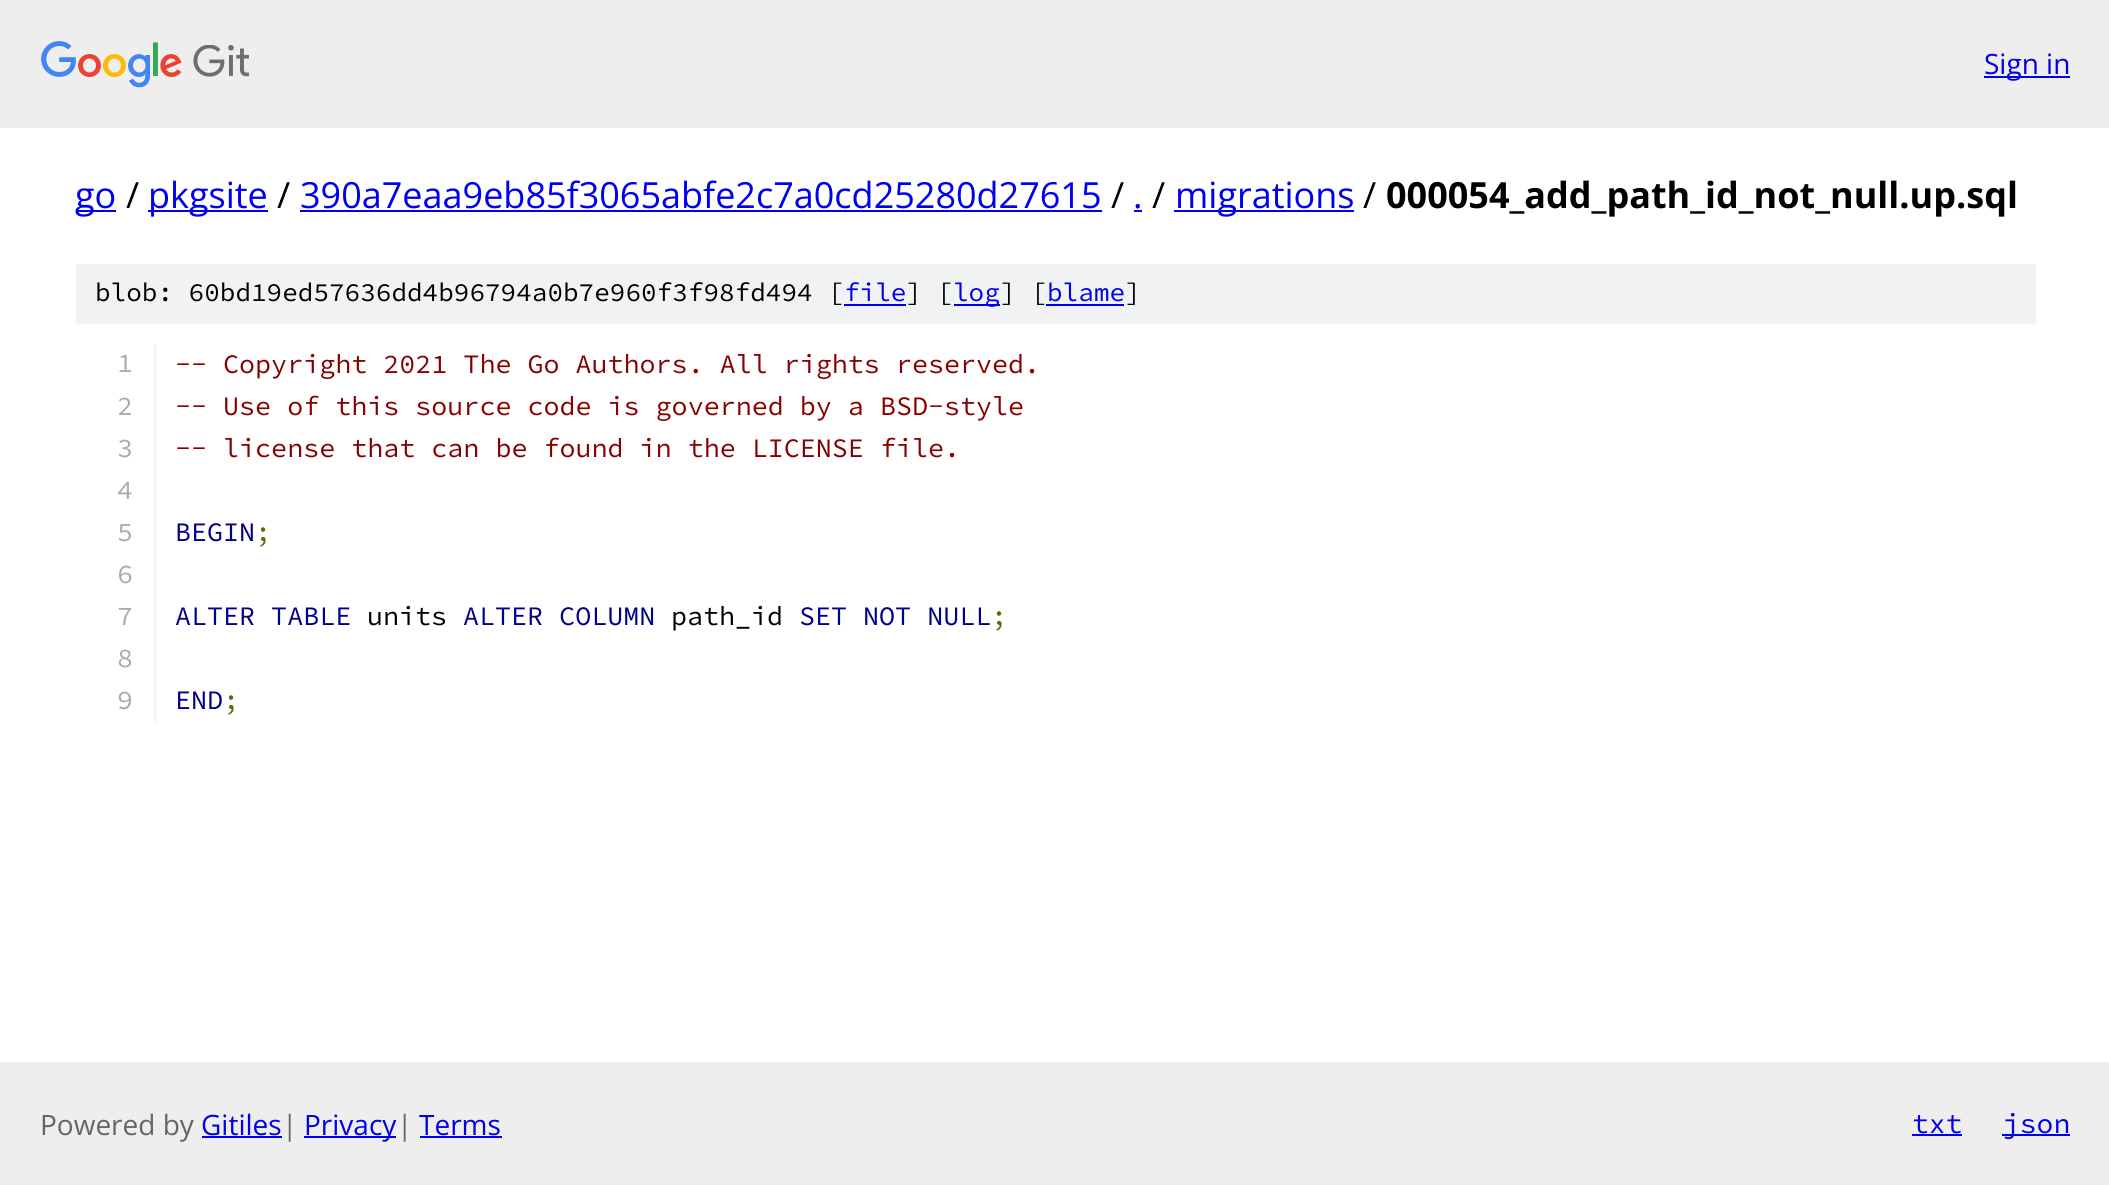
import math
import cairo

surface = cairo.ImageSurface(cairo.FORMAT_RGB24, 2109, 1185)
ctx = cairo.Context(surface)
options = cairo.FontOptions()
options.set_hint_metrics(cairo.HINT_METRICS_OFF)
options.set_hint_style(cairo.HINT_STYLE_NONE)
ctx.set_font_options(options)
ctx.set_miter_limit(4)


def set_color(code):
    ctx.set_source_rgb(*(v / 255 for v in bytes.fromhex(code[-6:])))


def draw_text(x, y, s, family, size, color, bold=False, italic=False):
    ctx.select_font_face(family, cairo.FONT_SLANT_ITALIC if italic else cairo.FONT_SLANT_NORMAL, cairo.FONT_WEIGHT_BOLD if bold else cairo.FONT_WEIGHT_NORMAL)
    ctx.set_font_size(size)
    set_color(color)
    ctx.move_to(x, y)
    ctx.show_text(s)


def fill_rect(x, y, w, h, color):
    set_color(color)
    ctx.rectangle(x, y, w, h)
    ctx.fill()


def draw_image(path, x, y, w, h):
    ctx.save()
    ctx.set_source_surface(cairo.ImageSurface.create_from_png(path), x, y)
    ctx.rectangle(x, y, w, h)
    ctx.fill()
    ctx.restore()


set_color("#ffffff")
ctx.paint()
fill_rect(0, 0, 2109, 128, "#eeeeee")
draw_image("assets/img1.png", 41, 41, 208, 47)
fill_rect(1984, 76, 86, 2, "#0000ee")
draw_text(1984, 74, "Sign in", "Open Sans", 28, "#0000ee")
fill_rect(76, 210, 40, 2, "#0000ee")
draw_text(75, 208, "go", "Open Sans", 36, "#0000ee")
draw_text(126, 208, "/", "Open Sans", 36, "#000000")
fill_rect(148, 210, 120, 2, "#0000ee")
draw_text(148, 208, "pkgsite", "Open Sans", 36, "#0000ee")
draw_text(277, 208, "/", "Open Sans", 36, "#000000")
draw_text(300, 208, "390a7eaa9eb85f3065abfe2c7a0cd25280d27615", "Open Sans", 36, "#0000ee")
fill_rect(300, 210, 802, 2, "#0000ee")
draw_text(1111, 208, "/", "Open Sans", 36, "#000000")
draw_text(1133, 208, ".", "Open Sans", 36, "#0000ee")
fill_rect(1134, 210, 8, 2, "#0000ee")
draw_text(1152, 208, "/", "Open Sans", 36, "#000000")
fill_rect(1174, 210, 180, 2, "#0000ee")
draw_text(1175, 208, "migrations", "Open Sans", 36, "#0000ee")
draw_text(1363, 208, "/", "Open Sans", 36, "#000000")
draw_text(1386, 208, "000054_add_path_id_not_null.up.sql", "Open Sans", 36, "#000000", bold=True)
fill_rect(76, 264, 1960, 60, "#f1f2f3")
draw_text(95, 301, "blob: 60bd19ed57636dd4b96794a0b7e960f3f98fd494 [", "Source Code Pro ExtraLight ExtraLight", 26, "#000000")
draw_text(844, 301, "file", "Source Code Pro ExtraLight ExtraLight", 26, "#0000ee")
fill_rect(844, 304, 62, 2, "#0000ee")
draw_text(906, 301, "] [", "Source Code Pro ExtraLight ExtraLight", 26, "#000000")
fill_rect(954, 304, 46, 2, "#0000ee")
draw_text(953, 301, "log", "Source Code Pro ExtraLight ExtraLight", 26, "#0000ee")
draw_text(1000, 301, "] [", "Source Code Pro ExtraLight ExtraLight", 26, "#000000")
draw_text(1047, 301, "blame", "Source Code Pro ExtraLight ExtraLight", 26, "#0000ee")
fill_rect(1046, 304, 78, 2, "#0000ee")
draw_text(1125, 301, "]", "Source Code Pro ExtraLight ExtraLight", 26, "#000000")
fill_rect(154, 344, 2, 378, "#f1f2f3")
draw_text(117, 372, "1", "Source Code Pro ExtraLight ExtraLight", 26.7, "#aaaaaa")
draw_text(175, 373, "-- Copyright 2021 The Go Authors. All rights reserved.", "Source Code Pro ExtraLight ExtraLight", 26.7, "#880000")
draw_text(117, 415, "2", "Source Code Pro ExtraLight ExtraLight", 26.7, "#aaaaaa")
draw_text(175, 415, "-- Use of this source code is governed by a BSD-style", "Source Code Pro ExtraLight ExtraLight", 26.7, "#880000")
draw_text(117, 457, "3", "Source Code Pro ExtraLight ExtraLight", 26.7, "#aaaaaa")
draw_text(175, 457, "-- license that can be found in the LICENSE file.", "Source Code Pro ExtraLight ExtraLight", 26.7, "#880000")
draw_text(117, 499, "4", "Source Code Pro ExtraLight ExtraLight", 26.7, "#aaaaaa")
draw_text(117, 541, "5", "Source Code Pro ExtraLight ExtraLight", 26.7, "#aaaaaa")
draw_text(175, 541, "BEGIN", "Source Code Pro ExtraLight ExtraLight", 26.7, "#000088")
draw_text(255, 541, ";", "Source Code Pro ExtraLight ExtraLight", 26.7, "#666600")
draw_text(117, 583, "6", "Source Code Pro ExtraLight ExtraLight", 26.7, "#aaaaaa")
draw_text(117, 625, "7", "Source Code Pro ExtraLight ExtraLight", 26.7, "#aaaaaa")
draw_text(175, 625, "ALTER TABLE", "Source Code Pro ExtraLight ExtraLight", 26.7, "#000088")
draw_text(367, 625, "units", "Source Code Pro ExtraLight ExtraLight", 26.7, "#000000")
draw_text(463, 625, "ALTER COLUMN", "Source Code Pro ExtraLight ExtraLight", 26.7, "#000088")
draw_text(671, 625, "path_id", "Source Code Pro ExtraLight ExtraLight", 26.7, "#000000")
draw_text(799, 625, "SET NOT NULL", "Source Code Pro ExtraLight ExtraLight", 26.7, "#000088")
draw_text(991, 625, ";", "Source Code Pro ExtraLight ExtraLight", 26.7, "#666600")
draw_text(117, 667, "8", "Source Code Pro ExtraLight ExtraLight", 26.7, "#aaaaaa")
draw_text(117, 709, "9", "Source Code Pro ExtraLight ExtraLight", 26.7, "#aaaaaa")
draw_text(175, 709, "END", "Source Code Pro ExtraLight ExtraLight", 26.7, "#000088")
draw_text(223, 709, ";", "Source Code Pro ExtraLight ExtraLight", 26.7, "#666600")
fill_rect(0, 1062, 2109, 123, "#eeeeee")
draw_text(40, 1135, "Powered by", "Open Sans", 28, "#666666")
draw_text(201, 1135, "Gitiles", "Open Sans", 28, "#0000ee")
fill_rect(202, 1136, 80, 2, "#0000ee")
draw_text(282, 1135, "|", "Open Sans", 28, "#666666")
fill_rect(304, 1136, 92, 2, "#0000ee")
draw_text(304, 1135, "Privacy", "Open Sans", 28, "#0000ee")
draw_text(397, 1135, "|", "Open Sans", 28, "#666666")
draw_text(419, 1135, "Terms", "Open Sans", 28, "#0000ee")
fill_rect(420, 1136, 82, 2, "#0000ee")
draw_text(1912, 1133, "txt", "Source Code Pro ExtraLight ExtraLight", 28, "#0000ee")
fill_rect(1912, 1134, 50, 2, "#0000ee")
fill_rect(2002, 1134, 68, 2, "#0000ee")
draw_text(2003, 1133, "json", "Source Code Pro ExtraLight ExtraLight", 28, "#0000ee")
surface.write_to_png("output.png")
